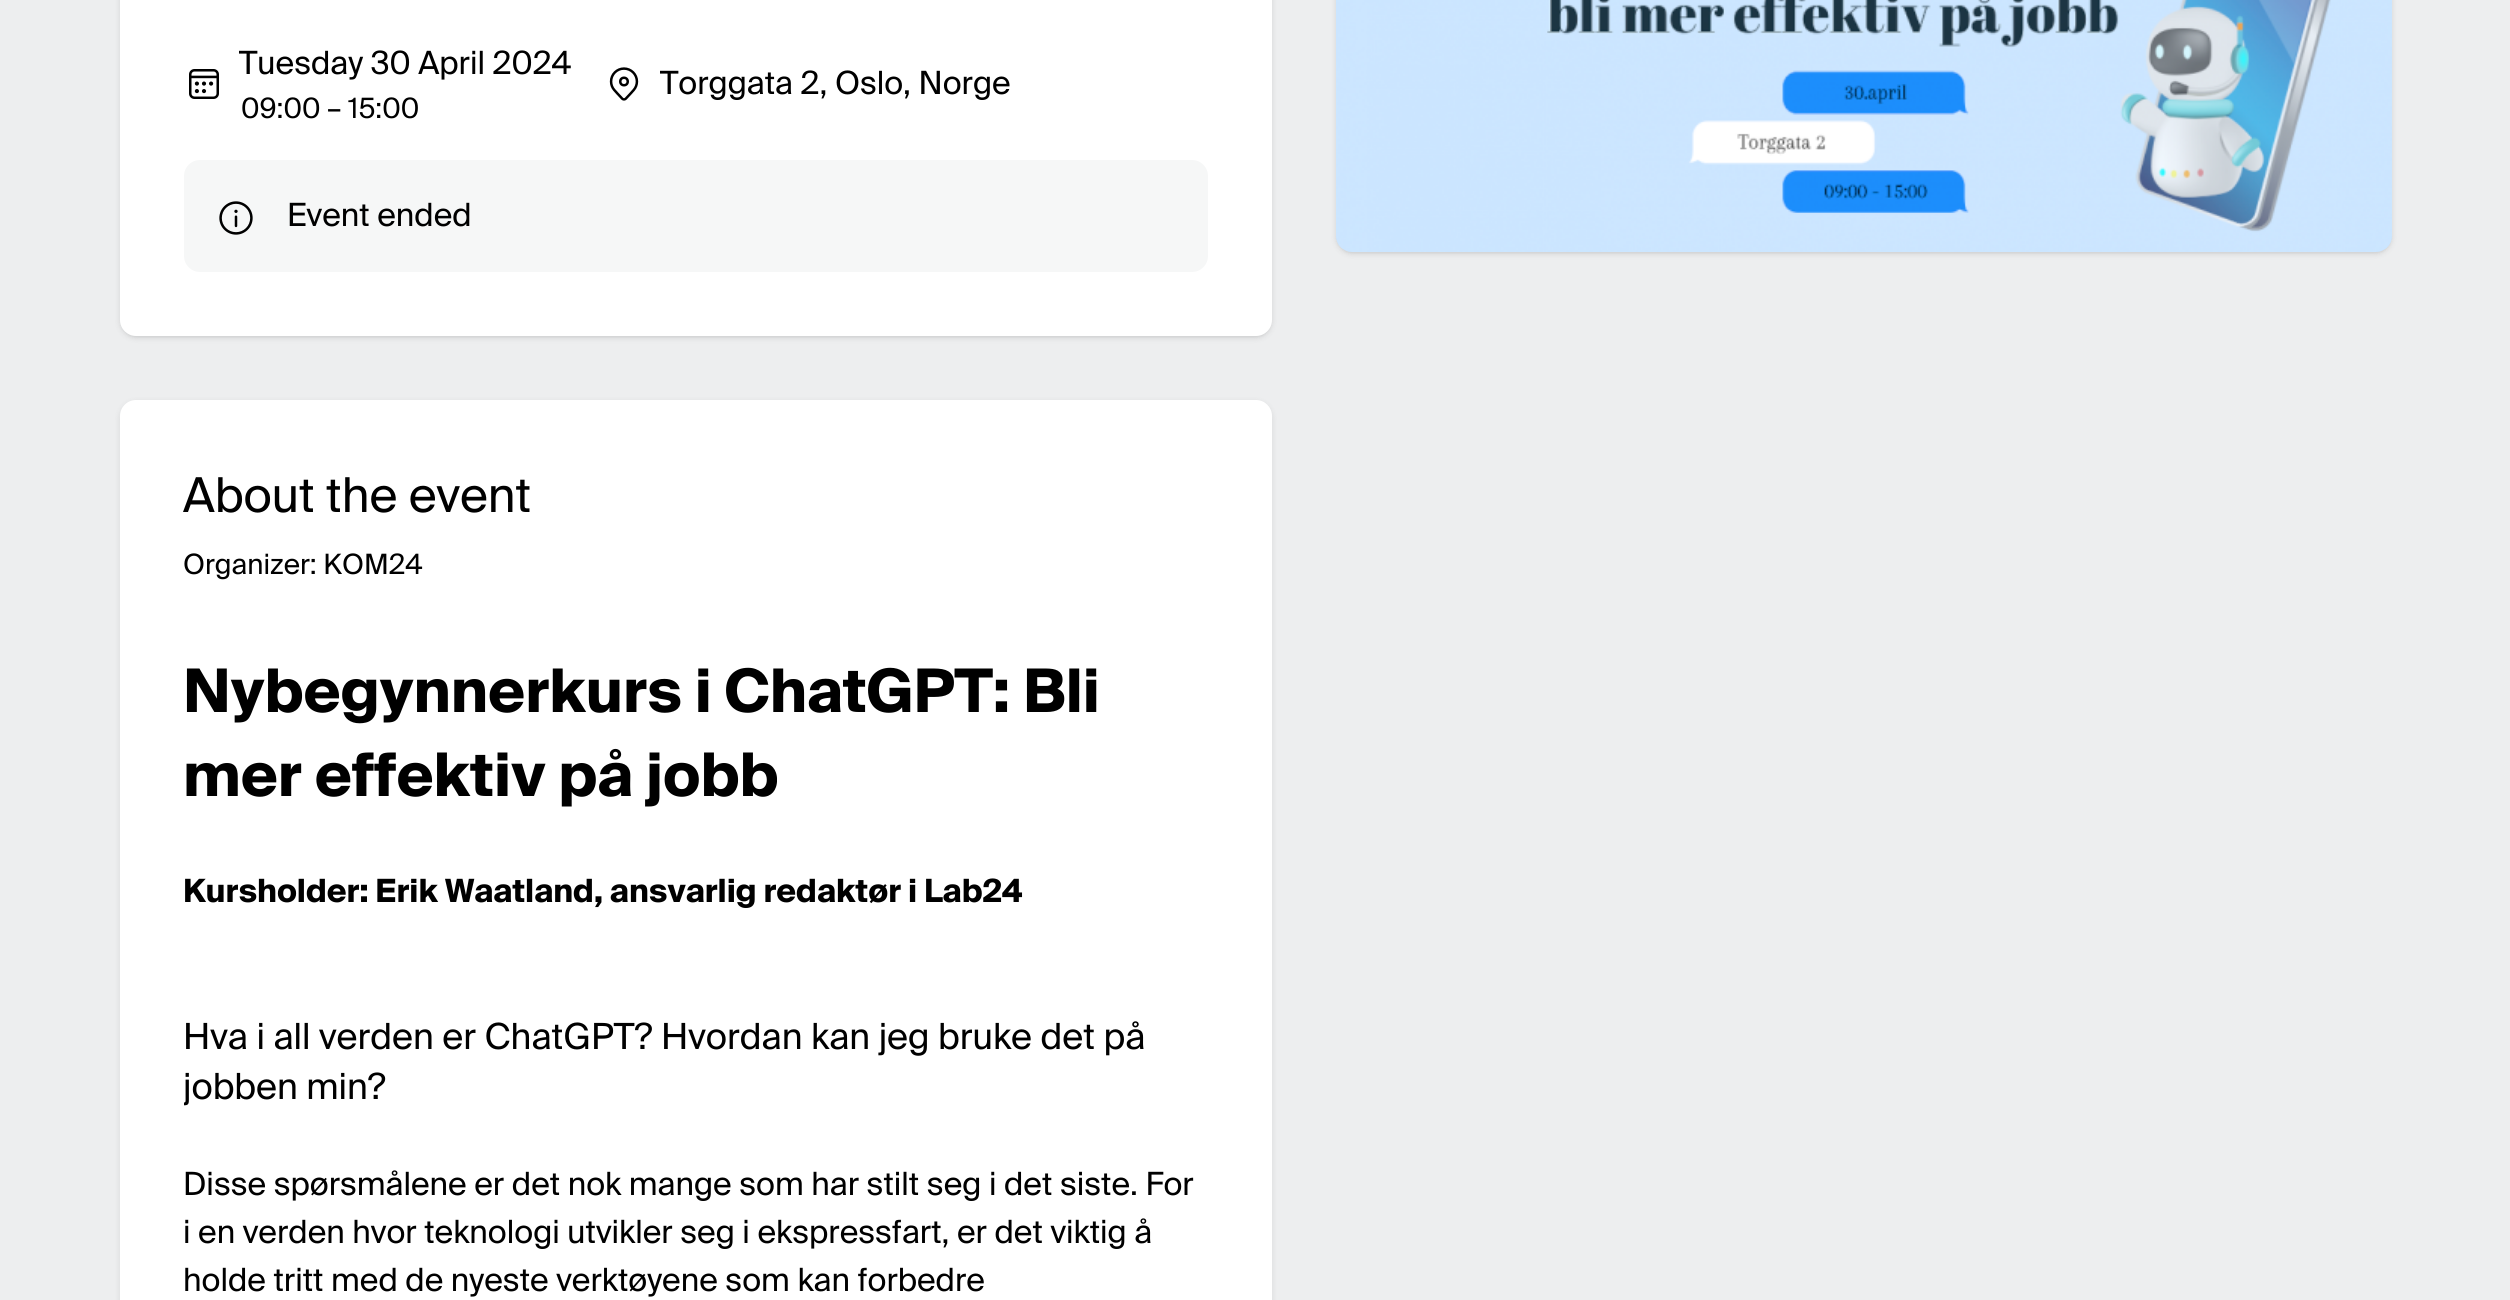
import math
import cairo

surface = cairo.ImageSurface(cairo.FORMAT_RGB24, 2510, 1300)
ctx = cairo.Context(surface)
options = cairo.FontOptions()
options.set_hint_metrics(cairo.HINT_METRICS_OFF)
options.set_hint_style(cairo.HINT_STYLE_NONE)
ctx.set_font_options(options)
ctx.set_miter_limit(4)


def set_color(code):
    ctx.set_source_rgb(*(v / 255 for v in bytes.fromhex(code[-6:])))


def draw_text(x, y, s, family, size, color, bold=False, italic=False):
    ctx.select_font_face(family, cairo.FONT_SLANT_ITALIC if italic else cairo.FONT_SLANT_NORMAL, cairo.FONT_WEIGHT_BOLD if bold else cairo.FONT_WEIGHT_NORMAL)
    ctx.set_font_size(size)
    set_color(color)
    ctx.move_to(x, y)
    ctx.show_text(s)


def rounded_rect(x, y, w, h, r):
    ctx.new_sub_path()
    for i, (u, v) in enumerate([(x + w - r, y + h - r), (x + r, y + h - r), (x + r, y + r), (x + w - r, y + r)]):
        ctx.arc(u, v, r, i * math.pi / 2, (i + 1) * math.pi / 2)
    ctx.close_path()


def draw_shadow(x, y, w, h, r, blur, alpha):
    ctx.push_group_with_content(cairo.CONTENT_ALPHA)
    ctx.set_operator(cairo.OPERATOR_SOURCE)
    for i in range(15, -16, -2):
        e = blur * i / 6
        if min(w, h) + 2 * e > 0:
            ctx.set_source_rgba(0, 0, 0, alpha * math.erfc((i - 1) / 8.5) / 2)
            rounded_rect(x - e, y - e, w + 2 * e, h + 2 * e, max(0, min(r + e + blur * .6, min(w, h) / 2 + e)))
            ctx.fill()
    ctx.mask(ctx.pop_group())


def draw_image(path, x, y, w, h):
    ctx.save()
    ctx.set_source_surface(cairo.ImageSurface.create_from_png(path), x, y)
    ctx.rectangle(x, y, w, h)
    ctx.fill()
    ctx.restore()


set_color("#edeeef")
ctx.paint()
set_color("#000000")
draw_shadow(122, -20, 1148, 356, 14, 2, 0.1)
draw_shadow(120, -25, 1152, 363, 16, 3, 0.1)
set_color("#ffffff")
rounded_rect(120, -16, 1152, 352, 16)
ctx.fill()
draw_image("assets/img1.png", 189, 69, 30, 30)
draw_text(239, 74, "Tuesday 30 April 2024", "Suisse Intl", 32, "#000000")
draw_text(241, 118, "09:00 – 15:00", "Suisse Intl", 28, "#000000")
draw_image("assets/img2.png", 609, 67, 30, 34)
draw_text(660, 94, "Torggata 2, Oslo, Norge", "Suisse Intl", 32, "#000000")
set_color("#f6f7f7")
rounded_rect(184, 160, 1024, 112, 16)
ctx.fill()
draw_image("assets/img3.png", 219, 201, 34, 34)
draw_text(287, 226, "Event ended", "Suisse Intl", 32, "#000000")
set_color("#000000")
draw_shadow(120, 402, 1152, 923, 16, 3, 0.1)
set_color("#ffffff")
rounded_rect(120, 400, 1152, 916, 16)
ctx.fill()
draw_text(183, 512, "About the event", "Suisse Intl", 48, "#000000")
draw_text(183, 574, "Organizer: KOM24", "Suisse Intl", 28, "#000000")
draw_text(183, 712, "Nybegynnerkurs i ChatGPT: Bli", "Suisse Intl", 60, "#000000", bold=True)
draw_text(183, 796, "mer effektiv på jobb", "Suisse Intl", 60, "#000000", bold=True)
draw_text(183, 902, "Kursholder: Erik Waatland, ansvarlig redaktør i Lab24", "Suisse Intl", 32, "#000000", bold=True)
draw_text(183, 1049, "Hva i all verden er ChatGPT? Hvordan kan jeg bruke det på", "Suisse Intl", 36, "#000000")
ctx.save()
ctx.rectangle(184, 600, 1024, 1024)
ctx.clip()
draw_text(183, 1099, "jobben min?", "Suisse Intl", 36, "#000000")
ctx.restore()
draw_text(183, 1195, "Disse spørsmålene er det nok mange som har stilt seg i det siste. For", "Suisse Intl", 32, "#000000")
draw_text(183, 1243, "i en verden hvor teknologi utvikler seg i ekspressfart, er det viktig å", "Suisse Intl", 32, "#000000")
draw_text(183, 1291, "holde tritt med de nyeste verktøyene som kan forbedre", "Suisse Intl", 32, "#000000")
set_color("#000000")
draw_shadow(1338, -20, 1052, 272, 14, 2, 0.1)
draw_shadow(1336, -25, 1056, 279, 16, 3, 0.1)
draw_image("assets/img4.png", 1336, 0, 1056, 252)
surface.write_to_png("output.png")
